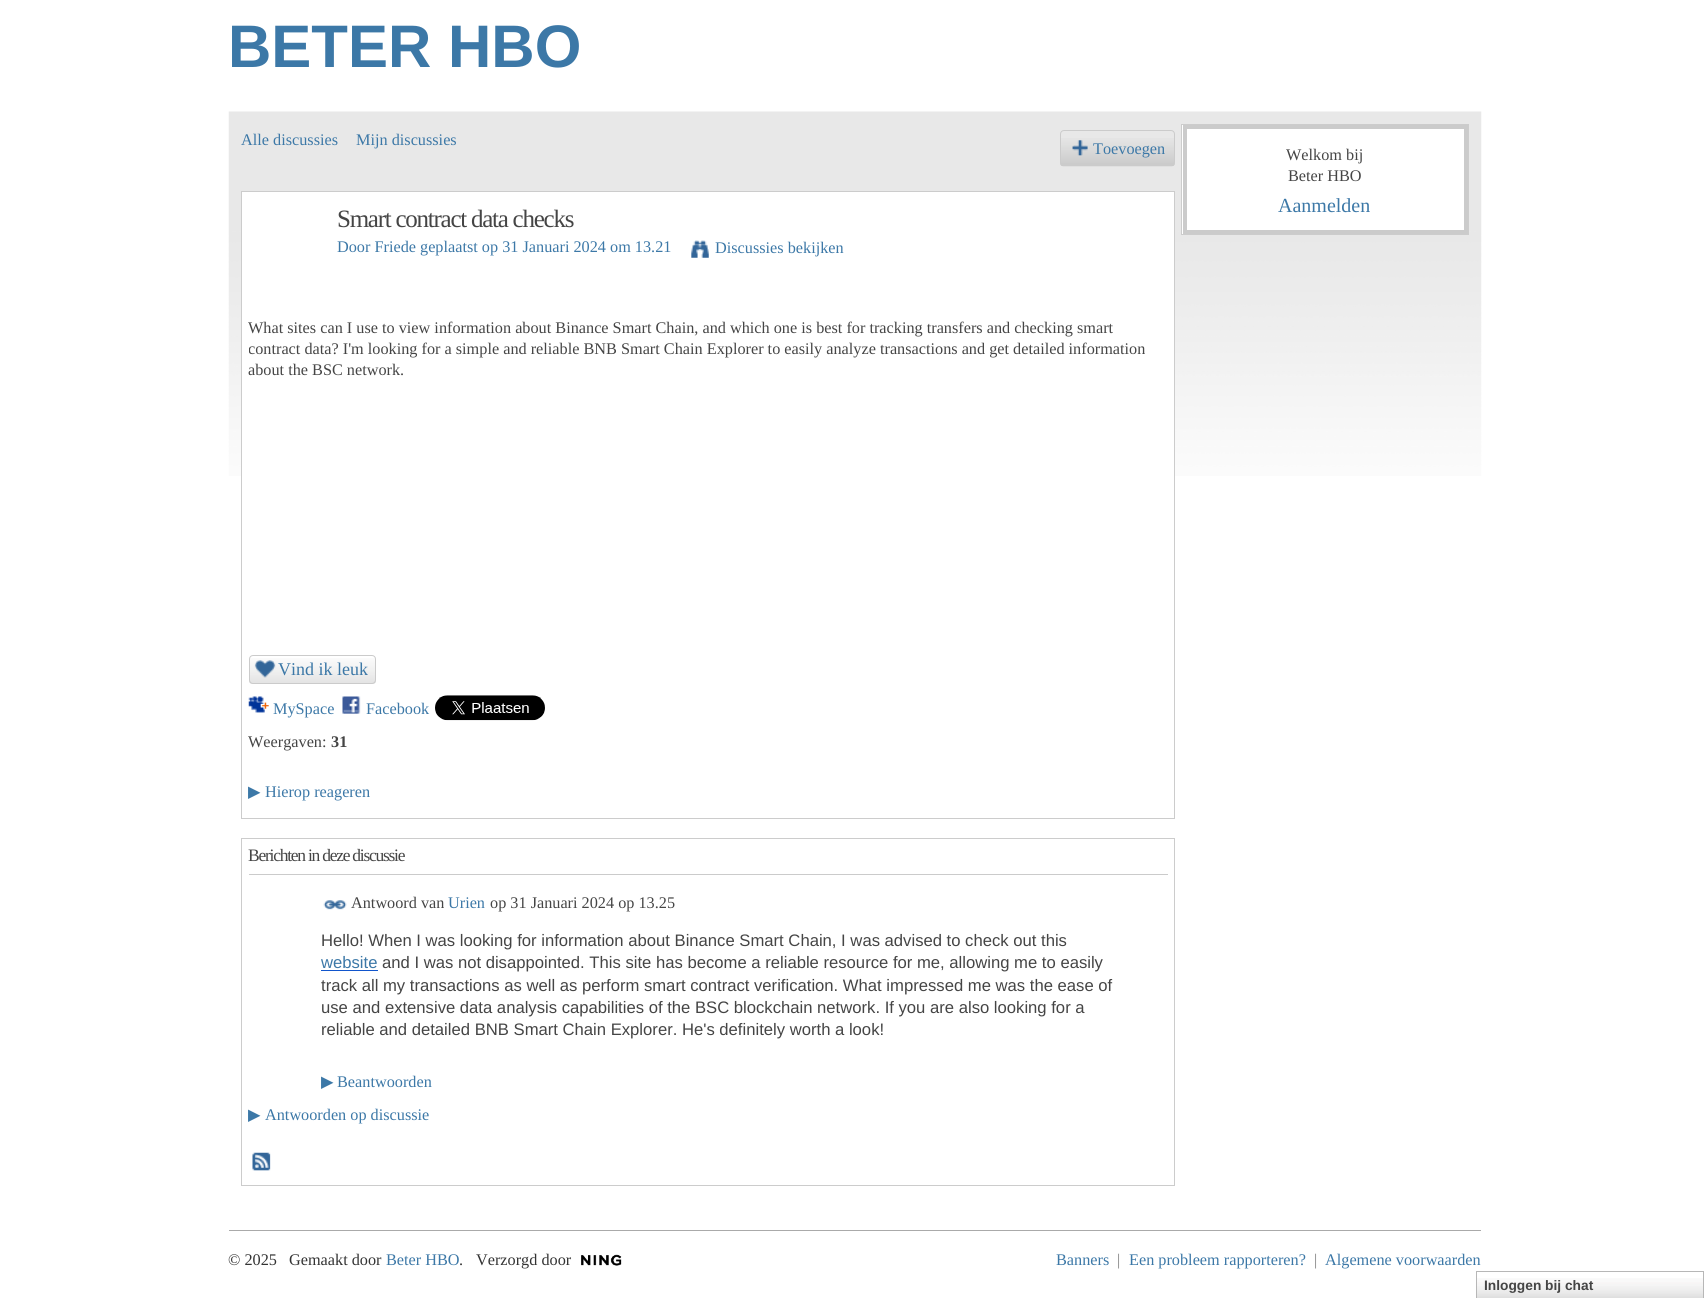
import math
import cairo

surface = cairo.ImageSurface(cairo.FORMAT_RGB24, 1708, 1298)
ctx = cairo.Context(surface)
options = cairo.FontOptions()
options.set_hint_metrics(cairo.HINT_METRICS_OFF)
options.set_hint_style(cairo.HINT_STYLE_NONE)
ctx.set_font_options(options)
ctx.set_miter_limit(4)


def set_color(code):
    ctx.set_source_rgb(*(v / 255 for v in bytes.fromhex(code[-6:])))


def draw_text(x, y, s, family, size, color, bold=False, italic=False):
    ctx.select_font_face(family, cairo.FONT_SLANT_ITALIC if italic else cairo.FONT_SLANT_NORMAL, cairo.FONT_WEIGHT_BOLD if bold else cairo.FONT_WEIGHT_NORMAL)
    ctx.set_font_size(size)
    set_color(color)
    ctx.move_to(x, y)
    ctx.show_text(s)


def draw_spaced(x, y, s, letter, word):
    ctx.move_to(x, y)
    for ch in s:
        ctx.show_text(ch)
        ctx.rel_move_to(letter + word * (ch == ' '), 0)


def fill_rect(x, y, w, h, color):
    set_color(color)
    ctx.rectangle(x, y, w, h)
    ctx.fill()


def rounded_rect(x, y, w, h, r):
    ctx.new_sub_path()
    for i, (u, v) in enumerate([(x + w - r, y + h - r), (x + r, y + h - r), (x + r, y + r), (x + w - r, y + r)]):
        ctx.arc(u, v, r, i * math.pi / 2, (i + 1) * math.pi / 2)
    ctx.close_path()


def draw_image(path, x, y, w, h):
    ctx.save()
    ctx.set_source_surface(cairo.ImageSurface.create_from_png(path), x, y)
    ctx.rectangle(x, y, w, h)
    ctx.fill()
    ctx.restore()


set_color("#ffffff")
ctx.paint()
draw_text(228, 67, "BETER HBO", "Liberation Sans", 60, "#3c78a7", bold=True)
draw_image("assets/img1.png", 228, 111, 1254, 365)
draw_text(241, 145, "Alle discussies", "Liberation Serif", 16.25, "#3c78a7")
draw_text(356, 145, "Mijn discussies", "Liberation Serif", 16.25, "#3c78a7")
draw_image("assets/img2.png", 1060, 138, 115, 29)
rounded_rect(1060.5, 130.5, 114, 35, 3.5)
set_color("#cbcbcb")
ctx.set_line_width(1)
ctx.stroke()
draw_image("assets/img3.png", 1072, 140, 16, 16)
draw_text(1093, 154, "Toevoegen", "Liberation Serif", 16.25, "#3c78a7")
fill_rect(242, 192, 932, 284, "#ffffff")
ctx.rectangle(241.5, 191.5, 933, 627)
set_color("#cccccc")
ctx.stroke()
ctx.set_font_size(25)
set_color("#454545")
draw_spaced(337, 227, "Smart contract data checks", -1.25, 0)
draw_text(337, 252, "Door Friede geplaatst op 31 Januari 2024 om 13.21", "Liberation Serif", 16.25, "#3c78a7")
draw_image("assets/img4.png", 691, 240, 18, 18)
draw_text(715, 253, "Discussies bekijken", "Liberation Serif", 16.25, "#3c78a7")
draw_text(248, 333, "What sites can I use to view information about Binance Smart Chain, and which one is best for tracking transfers and checking smart", "Liberation Serif", 16.25, "#454545")
ctx.save()
ctx.rectangle(249, 290, 919, 354)
ctx.clip()
draw_text(248, 354, "contract data? I'm looking for a simple and reliable BNB Smart Chain Explorer to easily analyze transactions and get detailed information", "Liberation Serif", 16.25, "#454545")
ctx.restore()
draw_text(248, 375, "about the BSC network.", "Liberation Serif", 16.25, "#454545")
draw_image("assets/img5.png", 249, 658, 127, 26)
rounded_rect(249.5, 655.5, 126, 28, 3.5)
set_color("#cbcbcb")
ctx.stroke()
draw_image("assets/img6.png", 254, 660, 22, 18)
draw_text(278, 675, "Vind ik leuk", "Liberation Serif", 18, "#3c78a7")
draw_image("assets/img7.png", 248, 696, 21, 17)
draw_text(273, 714, "MySpace", "Liberation Serif", 16.25, "#3c78a7")
draw_image("assets/img8.png", 342, 696, 19, 18)
draw_text(366, 714, "Facebook", "Liberation Serif", 16.25, "#3c78a7")
draw_image("assets/img9.png", 435, 695, 110, 26)
draw_text(248, 747, "Weergaven:", "Liberation Serif", 16.25, "#454545")
draw_text(331, 747, "31", "Liberation Serif", 16.25, "#454545", bold=True)
draw_text(248, 797, "▶", "DejaVu Sans", 16.25, "#3c78a7")
draw_text(265, 797, "Hierop reageren", "Liberation Serif", 16.25, "#3c78a7")
ctx.rectangle(241.5, 838.5, 933, 347)
set_color("#cccccc")
ctx.stroke()
ctx.set_font_size(17.5)
set_color("#454545")
draw_spaced(248, 861, "Berichten in deze discussie", -1.25, 0)
fill_rect(249, 874, 919, 1, "#cbcbcb")
draw_image("assets/img10.png", 323, 900, 24, 10)
draw_text(351, 908, "Antwoord van", "Liberation Serif", 16.25, "#454545")
draw_text(448, 908, "Urien", "Liberation Serif", 16.25, "#3c78a7")
draw_text(490, 908, "op 31 Januari 2024 op 13.25", "Liberation Serif", 16.25, "#454545")
draw_text(321, 946, "Hello! When I was looking for information about Binance Smart Chain, I was advised to check out this", "Liberation Sans", 16.65, "#454545")
draw_text(321, 968, "website", "Liberation Sans", 16.65, "#3c78a7")
fill_rect(321, 970, 57, 1, "#1155cc")
draw_text(382, 968, "and I was not disappointed. This site has become a reliable resource for me, allowing me to easily", "Liberation Sans", 16.65, "#454545")
draw_text(321, 991, "track all my transactions as well as perform smart contract verification. What impressed me was the ease of", "Liberation Sans", 16.65, "#454545")
draw_text(321, 1013, "use and extensive data analysis capabilities of the BSC blockchain network. If you are also looking for a", "Liberation Sans", 16.65, "#454545")
draw_text(321, 1035, "reliable and detailed BNB Smart Chain Explorer. He's definitely worth a look!", "Liberation Sans", 16.65, "#454545")
draw_text(321, 1087, "▶", "DejaVu Sans", 16.25, "#3c78a7")
draw_text(337, 1087, "Beantwoorden", "Liberation Serif", 16.25, "#3c78a7")
draw_text(248, 1120, "▶", "DejaVu Sans", 16.25, "#3c78a7")
draw_text(265, 1120, "Antwoorden op discussie", "Liberation Serif", 16.25, "#3c78a7")
draw_image("assets/img11.png", 252, 1152, 19, 19)
fill_rect(1182, 125, 282, 109, "#ffffff")
ctx.rectangle(1181.5, 124.5, 287, 110)
set_color("#cccccc")
ctx.stroke()
ctx.rectangle(1185, 127, 281, 105)
set_color("#cbcbcb")
ctx.set_line_width(4)
ctx.stroke()
draw_text(1286, 160, "Welkom bij", "Liberation Serif", 16.25, "#454545")
draw_text(1288, 181, "Beter HBO", "Liberation Serif", 16.25, "#454545")
draw_text(1278, 212, "Aanmelden", "Liberation Serif", 20, "#3c78a7")
fill_rect(229, 1230, 1252, 1, "#aaaaaa")
draw_text(228, 1265, "© 2025", "Liberation Serif", 16.25, "#333333")
draw_text(289, 1265, "Gemaakt door", "Liberation Serif", 16.25, "#333333")
draw_text(386, 1265, "Beter HBO", "Liberation Serif", 16.25, "#3c78a7")
draw_text(459, 1265, ".", "Liberation Serif", 16.25, "#333333")
draw_text(476, 1265, "Verzorgd door", "Liberation Serif", 16.25, "#333333")
draw_image("assets/img12.png", 581, 1254, 41, 12)
draw_text(1056, 1265, "Banners", "Liberation Serif", 16.25, "#3c78a7")
draw_text(1117, 1265, "|", "Liberation Serif", 16.25, "#7f7f7f")
draw_text(1129, 1265, "Een probleem rapporteren?", "Liberation Serif", 16.25, "#3c78a7")
draw_text(1314, 1265, "|", "Liberation Serif", 16.25, "#7f7f7f")
draw_text(1325, 1265, "Algemene voorwaarden", "Liberation Serif", 16.25, "#3c78a7")
draw_image("assets/img13.png", 1477, 1278, 226, 20)
ctx.rectangle(1476.5, 1271.5, 227, 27)
set_color("#b7b7b7")
ctx.set_line_width(1)
ctx.stroke()
draw_text(1484, 1290, "Inloggen bij chat", "Liberation Sans", 13.75, "#454545", bold=True)
surface.write_to_png("output.png")
